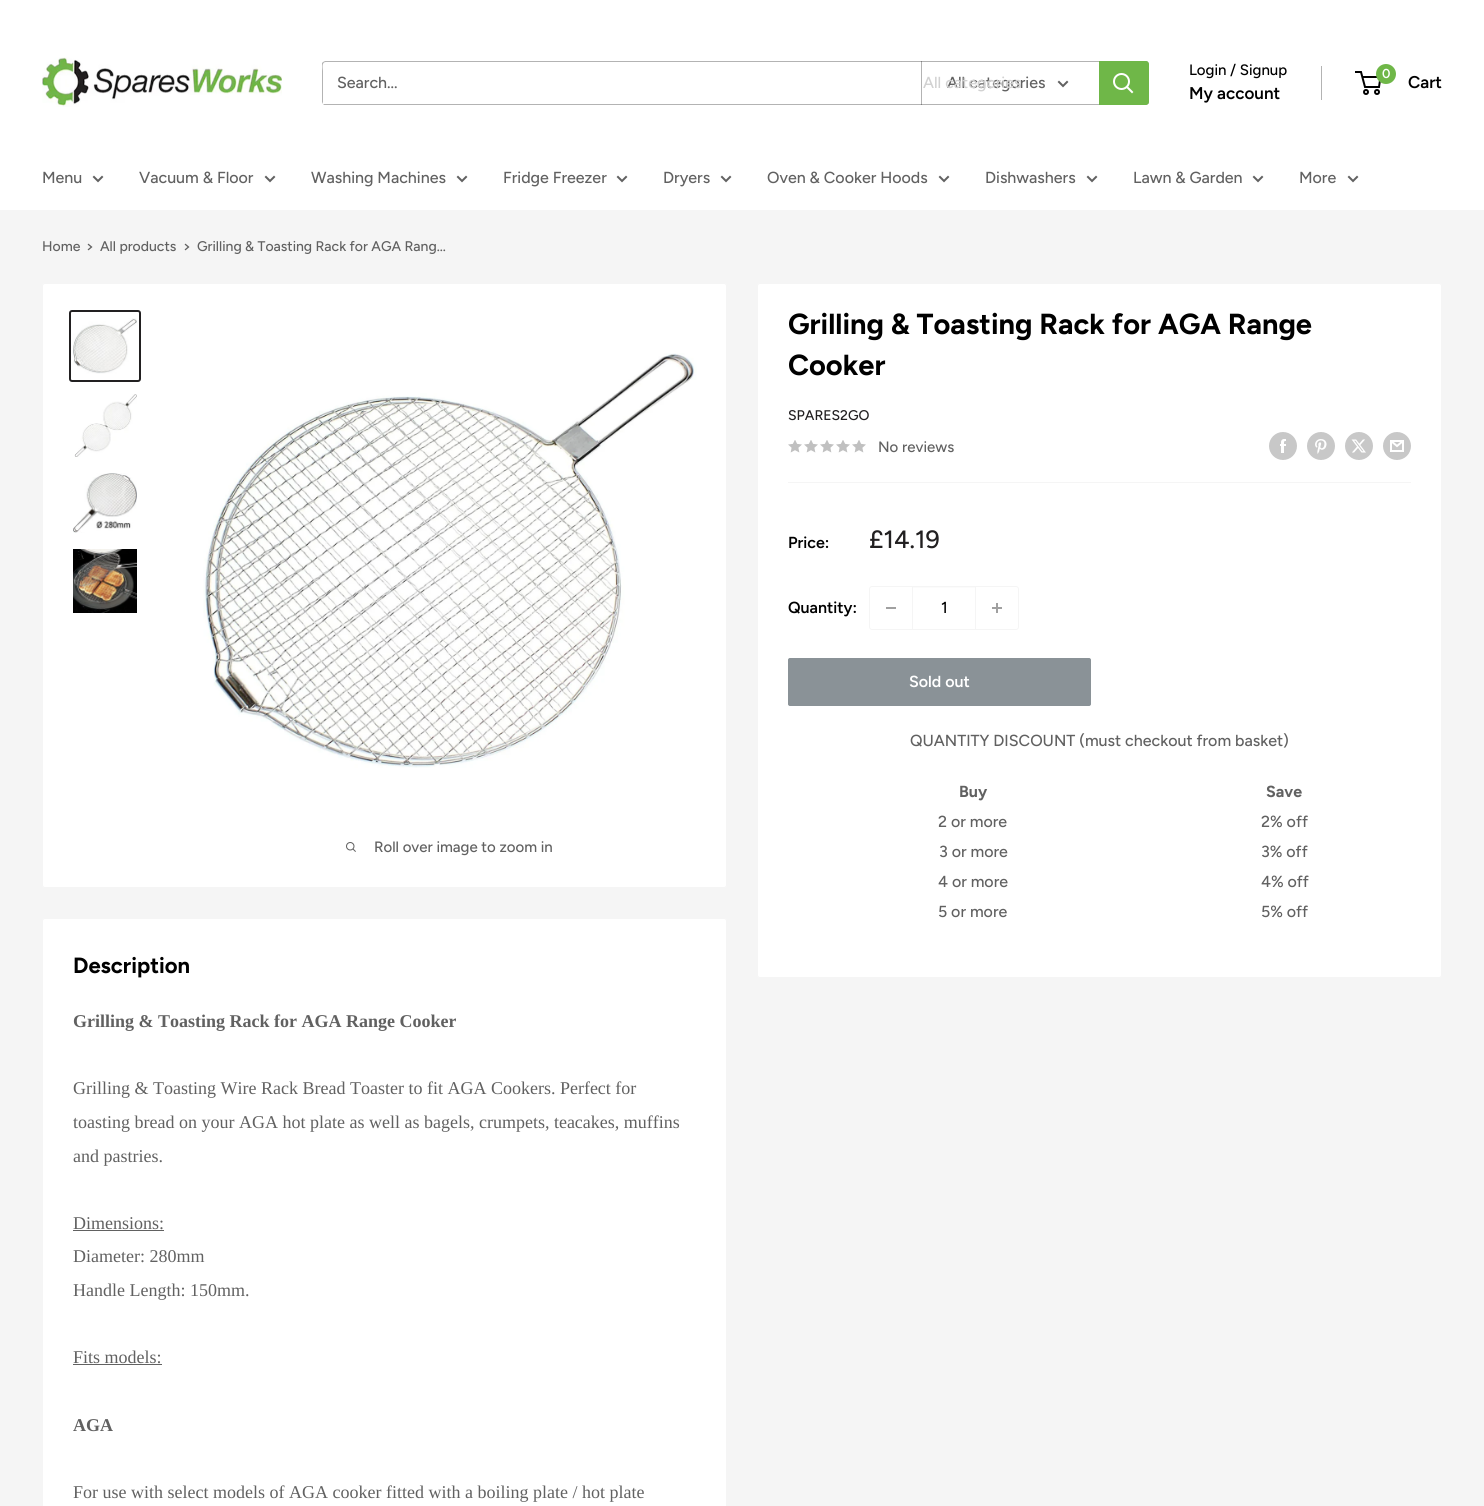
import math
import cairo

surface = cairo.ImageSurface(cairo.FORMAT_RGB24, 1484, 1506)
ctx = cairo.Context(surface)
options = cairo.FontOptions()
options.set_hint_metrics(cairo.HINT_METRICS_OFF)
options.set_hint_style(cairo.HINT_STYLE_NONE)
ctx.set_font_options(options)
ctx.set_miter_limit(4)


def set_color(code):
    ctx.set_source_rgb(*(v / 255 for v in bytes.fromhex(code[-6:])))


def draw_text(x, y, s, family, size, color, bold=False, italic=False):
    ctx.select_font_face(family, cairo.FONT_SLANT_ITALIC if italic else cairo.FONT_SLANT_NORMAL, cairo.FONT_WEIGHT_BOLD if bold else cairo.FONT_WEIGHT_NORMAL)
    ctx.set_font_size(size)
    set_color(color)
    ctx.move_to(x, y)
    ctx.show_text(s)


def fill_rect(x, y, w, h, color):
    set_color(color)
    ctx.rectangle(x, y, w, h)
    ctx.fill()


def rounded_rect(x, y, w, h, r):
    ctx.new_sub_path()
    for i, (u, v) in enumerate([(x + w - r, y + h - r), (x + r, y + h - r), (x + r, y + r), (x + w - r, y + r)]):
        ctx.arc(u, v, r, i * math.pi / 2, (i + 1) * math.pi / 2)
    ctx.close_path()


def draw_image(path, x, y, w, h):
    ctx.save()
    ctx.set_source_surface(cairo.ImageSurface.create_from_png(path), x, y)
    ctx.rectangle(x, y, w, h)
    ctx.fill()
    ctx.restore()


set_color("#f5f5f5")
ctx.paint()
fill_rect(0, 0, 1484, 210, "#ffffff")
draw_image("assets/img1.png", 42, 57, 240, 50)
set_color("#b3b3b3")
ctx.new_path()
ctx.move_to(323, 104)
ctx.line_to(324, 105)
ctx.line_to(1146, 105)
ctx.line_to(1148, 104)
ctx.line_to(1149, 103)
ctx.line_to(1149, 64)
ctx.line_to(1148, 62)
ctx.line_to(1148, 95)
ctx.curve_to(1148, 97, 1150, 104, 1145, 104)
ctx.close_path()
ctx.fill()
ctx.new_path()
ctx.move_to(326, 62)
ctx.line_to(1148, 62)
ctx.line_to(1147, 61)
ctx.line_to(325, 61)
ctx.line_to(323, 62)
ctx.line_to(322, 63)
ctx.line_to(322, 102)
ctx.line_to(323, 104)
ctx.line_to(323, 71)
ctx.curve_to(323, 69, 321, 62, 326, 62)
ctx.close_path()
ctx.fill()
draw_text(337, 88, "Search...", "Figtree Medium", 16, "#616161")
ctx.set_source_rgba(0, 0, 0, 0.3)
ctx.rectangle(921, 61, 1, 44)
ctx.fill()
draw_text(947, 88, "All categories", "Figtree Medium", 16, "#616161")
draw_text(923, 88, "All categories", "Figtree Medium", 16, "#d1d1d1")
ctx.new_path()
ctx.move_to(1067, 82)
ctx.line_to(1063, 86)
ctx.line_to(1059, 82)
set_color("#616161")
ctx.set_line_cap(cairo.LINE_CAP_SQUARE)
ctx.stroke()
set_color("#6fb748")
ctx.new_path()
ctx.move_to(1099, 61)
ctx.line_to(1146, 61)
ctx.curve_to(1147.5, 61, 1149, 62.5, 1149, 64)
ctx.line_to(1149, 102)
ctx.curve_to(1149, 103.5, 1147.5, 105, 1146, 105)
ctx.line_to(1099, 105)
ctx.close_path()
ctx.fill()
ctx.new_path()
ctx.move_to(1132, 92)
ctx.line_to(1127, 87)
set_color("#ffffff")
ctx.stroke()
ctx.arc(1121.5, 81.5, 7.5, 0, 2 * math.pi)
ctx.set_line_cap(cairo.LINE_CAP_BUTT)
ctx.stroke()
draw_text(1189, 75, "Login / Signup", "Figtree Medium", 15, "#000000")
fill_rect(1321, 66, 1, 34, "#b3b3b3")
draw_text(1189, 99, "My account", "Figtree SemiBold", 17, "#000000")
ctx.new_path()
ctx.arc(1366, 92, 2, 0, 2 * math.pi)
ctx.stroke()
ctx.arc(1377, 92, 2, 0, 2 * math.pi)
ctx.stroke()
ctx.new_path()
ctx.move_to(1362.5, 77)
ctx.line_to(1380.5, 77)
ctx.line_to(1379, 87)
ctx.line_to(1365, 87)
ctx.line_to(1361, 72)
ctx.line_to(1355, 72)
ctx.stroke()
set_color("#6fb748")
ctx.arc(1386, 74, 10, 0, 2 * math.pi)
ctx.fill()
draw_text(1382, 78, "0", "Figtree SemiBold", 13, "#ffffff")
draw_text(1408, 88, "Cart", "Figtree SemiBold", 17, "#000000")
draw_text(42, 183, "Menu", "Figtree Medium", 16, "#616161")
ctx.new_path()
ctx.move_to(102, 177)
ctx.line_to(98, 181)
ctx.line_to(94, 177)
ctx.set_line_cap(cairo.LINE_CAP_SQUARE)
ctx.stroke()
draw_text(139, 183, "Vacuum & Floor", "Figtree Medium", 16, "#616161")
ctx.new_path()
ctx.move_to(274, 177)
ctx.line_to(270, 181)
ctx.line_to(266, 177)
ctx.stroke()
draw_text(311, 183, "Washing Machines", "Figtree Medium", 16, "#616161")
ctx.new_path()
ctx.move_to(466, 177)
ctx.line_to(462, 181)
ctx.line_to(458, 177)
ctx.stroke()
draw_text(503, 183, "Fridge Freezer", "Figtree Medium", 16, "#616161")
ctx.new_path()
ctx.move_to(626, 177)
ctx.line_to(622, 181)
ctx.line_to(618, 177)
ctx.stroke()
draw_text(663, 183, "Dryers", "Figtree Medium", 16, "#616161")
ctx.new_path()
ctx.move_to(730, 177)
ctx.line_to(726, 181)
ctx.line_to(722, 177)
ctx.stroke()
draw_text(767, 183, "Oven & Cooker Hoods", "Figtree Medium", 16, "#616161")
ctx.new_path()
ctx.move_to(948, 177)
ctx.line_to(944, 181)
ctx.line_to(940, 177)
ctx.stroke()
draw_text(985, 183, "Dishwashers", "Figtree Medium", 16, "#616161")
ctx.new_path()
ctx.move_to(1096, 177)
ctx.line_to(1092, 181)
ctx.line_to(1088, 177)
ctx.stroke()
draw_text(1133, 183, "Lawn & Garden", "Figtree Medium", 16, "#616161")
ctx.new_path()
ctx.move_to(1262, 177)
ctx.line_to(1258, 181)
ctx.line_to(1254, 177)
ctx.stroke()
draw_text(1299, 183, "More", "Figtree Medium", 16, "#616161")
ctx.new_path()
ctx.move_to(1357, 177)
ctx.line_to(1353, 181)
ctx.line_to(1349, 177)
ctx.stroke()
draw_text(42, 251, "Home", "Figtree Medium", 14, "#616161")
ctx.new_path()
ctx.move_to(88.5, 244.5)
ctx.line_to(91.5, 247)
ctx.line_to(88.5, 249.5)
ctx.set_line_width(1.3)
ctx.stroke()
draw_text(100, 251, "All products", "Figtree Medium", 14, "#616161")
ctx.new_path()
ctx.move_to(185.5, 244.5)
ctx.line_to(188.5, 247)
ctx.line_to(185.5, 249.5)
ctx.stroke()
draw_text(197, 251, "Grilling & Toasting Rack for AGA Rang...", "Figtree Medium", 14, "#616161")
set_color("#ffffff")
rounded_rect(42.5, 283.5, 684, 604, 2.5)
ctx.fill_preserve()
set_color("#f5f5f5")
ctx.set_line_width(1)
ctx.set_line_cap(cairo.LINE_CAP_BUTT)
ctx.stroke()
rounded_rect(70, 311, 70, 70, 2)
set_color("#222021")
ctx.set_line_width(2)
ctx.stroke()
draw_image("assets/img2.png", 73, 318, 64, 56)
draw_image("assets/img3.png", 74, 394, 63, 63)
draw_image("assets/img4.png", 73, 473, 64, 60)
draw_image("assets/img5.png", 73, 549, 64, 64)
draw_image("assets/img6.png", 203, 353, 494, 415)
draw_image("assets/img7.png", 346, 842, 10, 10)
draw_text(374, 852, "Roll over image to zoom in", "Figtree Medium", 15, "#616161")
set_color("#ffffff")
rounded_rect(757.5, 283.5, 684, 694, 2.5)
ctx.fill_preserve()
set_color("#f5f5f5")
ctx.set_line_width(1)
ctx.stroke()
draw_text(788, 334, "Grilling & Toasting Rack for AGA Range", "Figtree", 29, "#000000", bold=True)
draw_text(788, 375, "Cooker", "Figtree", 29, "#000000", bold=True)
draw_text(788, 420, "SPARES2GO", "Figtree Medium", 14, "#222021")
draw_image("assets/img8.png", 788, 440, 14, 13)
draw_image("assets/img8.png", 804, 440, 14, 13)
draw_image("assets/img8.png", 820, 440, 14, 13)
draw_image("assets/img8.png", 836, 440, 14, 13)
draw_image("assets/img8.png", 852, 440, 14, 13)
draw_text(878, 452, "No reviews", "Figtree Medium", 15, "#616161")
draw_image("assets/img9.png", 1269, 432, 28, 28)
draw_image("assets/img10.png", 1307, 432, 28, 28)
draw_image("assets/img11.png", 1345, 432, 28, 28)
draw_image("assets/img12.png", 1383, 432, 28, 28)
fill_rect(788, 482, 623, 1, "#f5f5f5")
draw_text(788, 548, "Price:", "Figtree SemiBold", 16, "#000000")
draw_text(869, 548, "£14.19", "Figtree Medium", 25, "#222021")
draw_text(788, 613, "Quantity:", "Figtree SemiBold", 16, "#000000")
rounded_rect(869.5, 586.5, 149, 43, 2.5)
set_color("#f5f5f5")
ctx.stroke()
fill_rect(886, 607, 10, 2, "#a0a0a0")
fill_rect(913, 587, 62, 1, "#fbfbfb")
fill_rect(975, 587, 1, 42, "#f5f5f5")
fill_rect(912, 587, 1, 42, "#f5f5f5")
draw_text(941, 613, "1", "Figtree Medium", 16, "#000000")
draw_image("assets/img13.png", 992, 603, 10, 10)
set_color("#8a9297")
rounded_rect(788.5, 658.5, 302, 47, 1.5)
ctx.fill_preserve()
ctx.stroke()
draw_text(909, 687, "Sold out", "Figtree SemiBold", 16, "#ffffff")
draw_text(910, 746, "QUANTITY DISCOUNT (must checkout from basket)", "Figtree Medium", 16, "#616161")
draw_text(959, 797, "Buy", "Figtree", 16, "#616161", bold=True)
draw_text(1266, 797, "Save", "Figtree", 16, "#616161", bold=True)
draw_text(938, 827, "2 or more", "Figtree Medium", 16, "#616161")
draw_text(1261, 827, "2% off", "Figtree Medium", 16, "#616161")
draw_text(939, 857, "3 or more", "Figtree Medium", 16, "#616161")
draw_text(1261, 857, "3% off", "Figtree Medium", 16, "#616161")
draw_text(938, 887, "4 or more", "Figtree Medium", 16, "#616161")
draw_text(1261, 887, "4% off", "Figtree Medium", 16, "#616161")
draw_text(938, 917, "5 or more", "Figtree Medium", 16, "#616161")
draw_text(1261, 917, "5% off", "Figtree Medium", 16, "#616161")
set_color("#ffffff")
rounded_rect(42.5, 918.5, 684, 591, 2.5)
ctx.fill_preserve()
set_color("#f5f5f5")
ctx.stroke()
draw_text(73, 973, "Description", "Figtree", 22, "#000000", bold=True)
draw_text(73, 1027, "Grilling & Toasting Rack for AGA Range Cooker", "Liberation Serif", 18, "#616161", bold=True)
draw_text(73, 1094, "Grilling & Toasting Wire Rack Bread Toaster to fit AGA Cookers. Perfect for", "Liberation Serif", 18, "#616161")
draw_text(73, 1128, "toasting bread on your AGA hot plate as well as bagels, crumpets, teacakes, muffins", "Liberation Serif", 18, "#616161")
draw_text(73, 1162, "and pastries.", "Liberation Serif", 18, "#616161")
draw_text(73, 1229, "Dimensions:", "Liberation Serif", 18, "#616161")
fill_rect(73, 1230, 91, 1, "#616161")
draw_text(73, 1262, "Diameter: 280mm", "Liberation Serif", 18, "#616161")
draw_text(73, 1296, "Handle Length: 150mm.", "Liberation Serif", 18, "#616161")
draw_text(73, 1363, "Fits models:", "Liberation Serif", 18, "#616161")
fill_rect(73, 1364, 89, 1, "#616161")
draw_text(73, 1431, "AGA", "Liberation Serif", 18, "#616161", bold=True)
draw_text(73, 1498, "For use with select models of AGA cooker fitted with a boiling plate / hot plate", "Liberation Serif", 18, "#616161")
surface.write_to_png("output.png")
